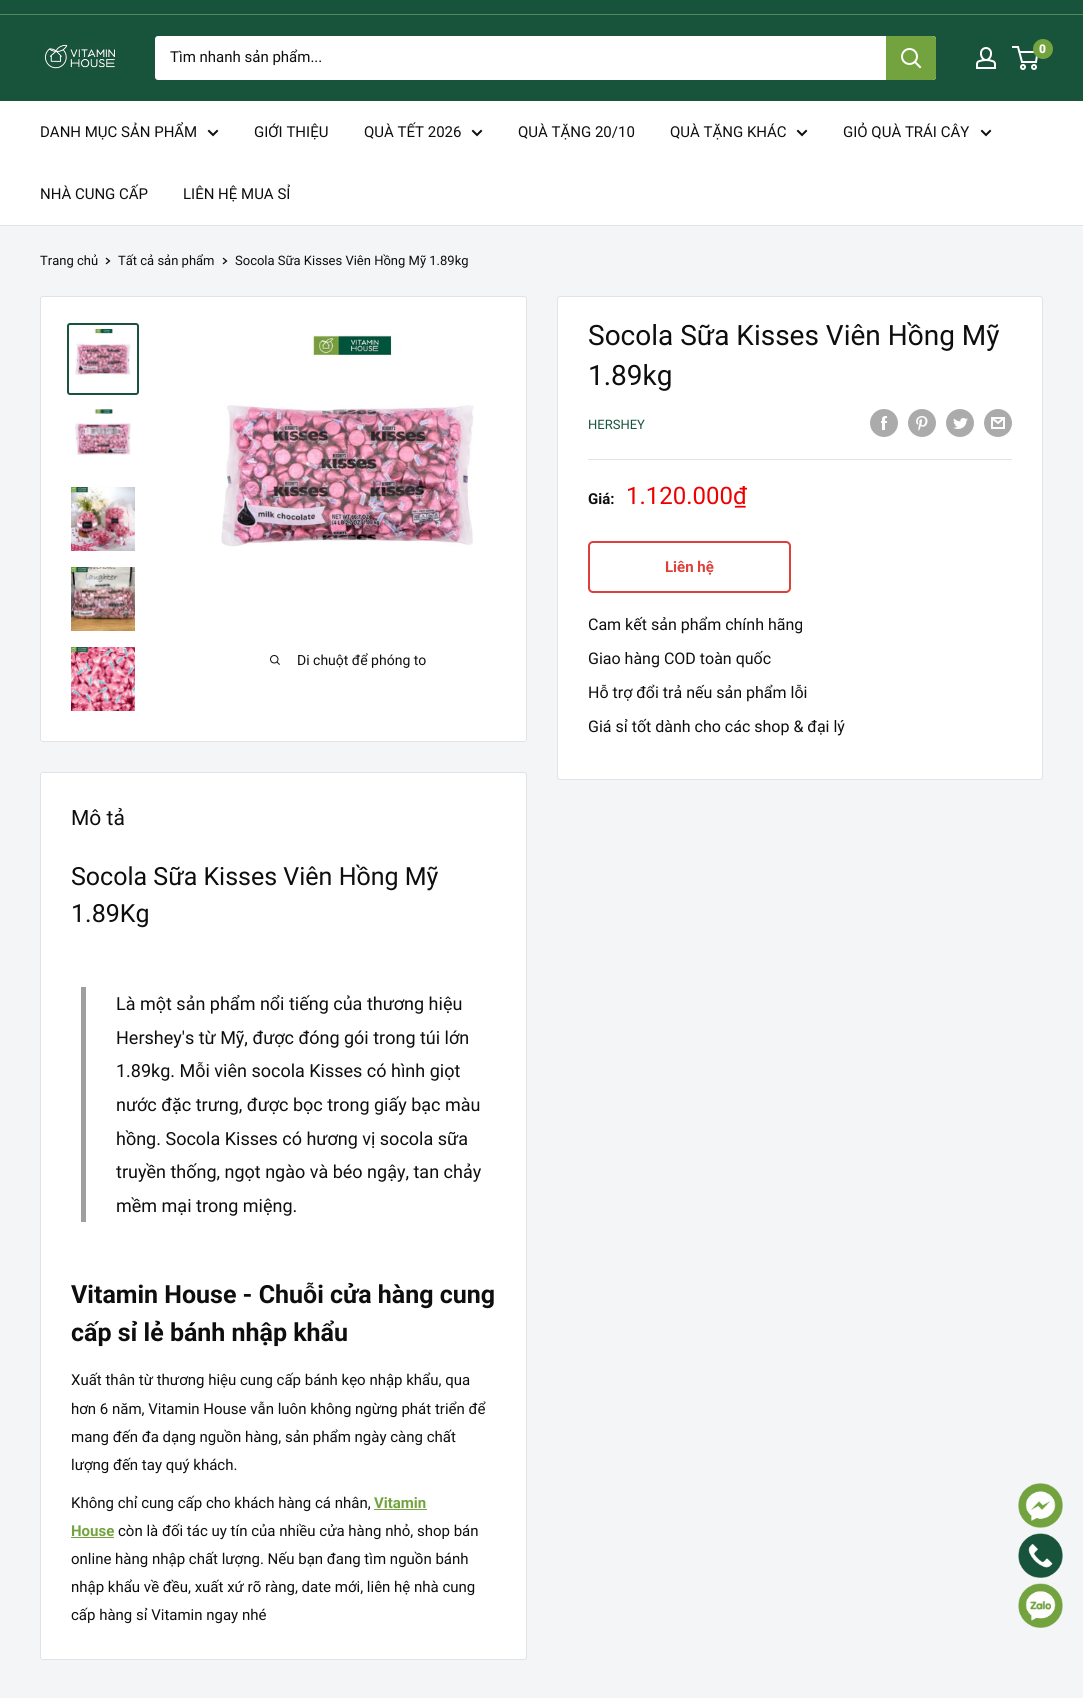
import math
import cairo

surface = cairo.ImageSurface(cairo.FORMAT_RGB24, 1083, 1698)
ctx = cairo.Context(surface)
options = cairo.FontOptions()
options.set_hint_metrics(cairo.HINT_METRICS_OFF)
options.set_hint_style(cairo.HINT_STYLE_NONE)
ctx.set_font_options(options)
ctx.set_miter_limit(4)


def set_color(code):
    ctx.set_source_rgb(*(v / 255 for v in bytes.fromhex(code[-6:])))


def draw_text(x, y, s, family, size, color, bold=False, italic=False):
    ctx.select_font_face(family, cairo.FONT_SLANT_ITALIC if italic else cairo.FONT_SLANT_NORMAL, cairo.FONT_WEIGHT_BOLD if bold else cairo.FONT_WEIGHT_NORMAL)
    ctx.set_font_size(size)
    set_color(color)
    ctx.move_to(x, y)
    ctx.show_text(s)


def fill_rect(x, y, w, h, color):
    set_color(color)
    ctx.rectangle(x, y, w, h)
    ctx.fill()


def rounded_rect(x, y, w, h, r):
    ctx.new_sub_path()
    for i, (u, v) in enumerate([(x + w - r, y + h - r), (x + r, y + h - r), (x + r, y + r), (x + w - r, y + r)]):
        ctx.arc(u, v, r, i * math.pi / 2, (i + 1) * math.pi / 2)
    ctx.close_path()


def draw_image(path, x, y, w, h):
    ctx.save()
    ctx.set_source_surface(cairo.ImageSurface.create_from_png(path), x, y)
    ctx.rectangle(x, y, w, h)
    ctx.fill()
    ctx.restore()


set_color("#f3f5f6")
ctx.paint()
fill_rect(0, 0, 1083, 14, "#18543b")
fill_rect(0, 14, 1083, 1, "#53875f")
fill_rect(0, 15, 1083, 86, "#18543b")
draw_image("assets/img1.png", 44, 43, 72, 26)
set_color("#ffffff")
rounded_rect(155, 36, 781, 44, 3)
ctx.fill()
draw_text(170, 62, "Tìm nhanh sản phẩm...", "Roboto", 15, "#0e0e0e")
set_color("#73a33e")
ctx.new_path()
ctx.move_to(886, 36)
ctx.line_to(933, 36)
ctx.curve_to(934.5, 36, 936, 37.5, 936, 39)
ctx.line_to(936, 77)
ctx.curve_to(936, 78.5, 934.5, 80, 933, 80)
ctx.line_to(886, 80)
ctx.close_path()
ctx.fill()
ctx.new_path()
ctx.move_to(920, 67)
ctx.line_to(915, 62)
set_color("#ffffff")
ctx.set_line_cap(cairo.LINE_CAP_SQUARE)
ctx.stroke()
ctx.arc(909.5, 56.5, 7.5, 0, 2 * math.pi)
ctx.set_line_cap(cairo.LINE_CAP_BUTT)
ctx.stroke()
draw_image("assets/img2.png", 976, 47, 20, 22)
ctx.arc(1023, 67, 2, 0, 2 * math.pi)
ctx.stroke()
ctx.arc(1034, 67, 2, 0, 2 * math.pi)
ctx.stroke()
ctx.new_path()
ctx.move_to(1019.5, 52)
ctx.line_to(1037.5, 52)
ctx.line_to(1036, 62)
ctx.line_to(1022, 62)
ctx.line_to(1018, 47)
ctx.line_to(1012, 47)
ctx.stroke()
set_color("#73a33e")
ctx.arc(1043, 49, 10, 0, 2 * math.pi)
ctx.fill()
draw_text(1039, 53, "0", "Roboto Black", 12, "#ffffff")
fill_rect(0, 101, 1083, 124, "#ffffff")
fill_rect(0, 225, 1083, 1, "#e1e3e4")
draw_text(40, 137, "DANH MỤC SẢN PHẨM", "Roboto", 15, "#0e0e0e")
ctx.new_path()
ctx.move_to(217, 131)
ctx.line_to(213, 135)
ctx.line_to(209, 131)
ctx.set_line_cap(cairo.LINE_CAP_SQUARE)
ctx.stroke()
draw_text(254, 137, "GIỚI THIỆU", "Roboto", 15, "#0e0e0e")
draw_text(364, 137, "QUÀ TẾT 2026", "Roboto", 15, "#0e0e0e")
ctx.new_path()
ctx.move_to(481, 131)
ctx.line_to(477, 135)
ctx.line_to(473, 131)
ctx.stroke()
draw_text(518, 137, "QUÀ TẶNG 20/10", "Roboto", 15, "#0e0e0e")
draw_text(670, 137, "QUÀ TẶNG KHÁC", "Roboto", 15, "#0e0e0e")
ctx.new_path()
ctx.move_to(806, 131)
ctx.line_to(802, 135)
ctx.line_to(798, 131)
ctx.stroke()
draw_text(843, 137, "GIỎ QUÀ TRÁI CÂY", "Roboto", 15, "#0e0e0e")
ctx.new_path()
ctx.move_to(990, 131)
ctx.line_to(986, 135)
ctx.line_to(982, 131)
ctx.stroke()
draw_text(40, 199, "NHÀ CUNG CẤP", "Roboto", 15, "#0e0e0e")
draw_text(183, 199, "LIÊN HỆ MUA SỈ", "Roboto", 15, "#0e0e0e")
draw_text(40, 265, "Trang chủ", "Roboto", 13, "#0e0e0e")
ctx.new_path()
ctx.move_to(106.5, 258.5)
ctx.line_to(109.5, 261)
ctx.line_to(106.5, 263.5)
ctx.set_line_width(1.3)
ctx.stroke()
draw_text(118, 265, "Tất cả sản phẩm", "Roboto", 13, "#0e0e0e")
ctx.new_path()
ctx.move_to(223.5, 258.5)
ctx.line_to(226.5, 261)
ctx.line_to(223.5, 263.5)
ctx.stroke()
draw_text(235, 265, "Socola Sữa Kisses Viên Hồng Mỹ 1.89kg", "Roboto", 13, "#0e0e0e")
set_color("#ffffff")
rounded_rect(40.5, 296.5, 486, 445, 2.5)
ctx.fill_preserve()
set_color("#e1e3e4")
ctx.set_line_width(1)
ctx.set_line_cap(cairo.LINE_CAP_BUTT)
ctx.stroke()
rounded_rect(68, 324, 70, 70, 2)
set_color("#18543b")
ctx.set_line_width(2)
ctx.stroke()
draw_image("assets/img3.png", 75, 327, 56, 48)
draw_image("assets/img4.png", 75, 409, 56, 46)
draw_image("assets/img5.png", 71, 487, 64, 64)
draw_image("assets/img6.png", 71, 567, 64, 64)
draw_image("assets/img7.png", 71, 647, 64, 64)
draw_image("assets/img8.png", 221, 334, 253, 213)
draw_image("assets/img9.png", 270, 655, 10, 10)
draw_text(297, 665, "Di chuột để phóng to", "Roboto", 14, "#0e0e0e")
set_color("#ffffff")
rounded_rect(557.5, 296.5, 485, 483, 2.5)
ctx.fill_preserve()
set_color("#e1e3e4")
ctx.set_line_width(1)
ctx.stroke()
draw_text(588, 345, "Socola Sữa Kisses Viên Hồng Mỹ", "Roboto", 28, "#0e0e0e")
draw_text(588, 385, "1.89kg", "Roboto", 28, "#0e0e0e")
draw_text(588, 429, "HERSHEY", "Roboto", 13, "#18543b")
draw_image("assets/img10.png", 870, 409, 28, 28)
draw_image("assets/img11.png", 908, 409, 28, 28)
draw_image("assets/img12.png", 946, 409, 28, 28)
draw_image("assets/img13.png", 984, 409, 28, 28)
fill_rect(588, 459, 424, 1, "#e1e3e4")
draw_text(588, 504, "Giá:", "Roboto", 15, "#0e0e0e", bold=True)
draw_text(626, 504, "1.120.000₫", "Roboto", 24, "#ee0000")
rounded_rect(589, 542, 201, 50, 4)
set_color("#dd403a")
ctx.set_line_width(2)
ctx.stroke()
draw_text(665, 572, "Liên hệ", "Roboto", 15, "#dd403a", bold=True)
draw_text(588, 630, "Cam kết sản phẩm chính hãng", "Roboto", 16, "#0e0e0e")
draw_text(588, 664, "Giao hàng COD toàn quốc", "Roboto", 16, "#0e0e0e")
draw_text(588, 698, "Hỗ trợ đổi trả nếu sản phẩm lỗi", "Roboto", 16, "#0e0e0e")
draw_text(588, 732, "Giá sỉ tốt dành cho các shop & đại lý", "Roboto", 16, "#0e0e0e")
set_color("#ffffff")
rounded_rect(40.5, 772.5, 486, 887, 2.5)
ctx.fill_preserve()
set_color("#e1e3e4")
ctx.set_line_width(1)
ctx.stroke()
draw_text(71, 825, "Mô tả", "Roboto", 21, "#0e0e0e")
draw_text(71, 885, "Socola Sữa Kisses Viên Hồng Mỹ", "Roboto", 25, "#0e0e0e")
draw_text(71, 922, "1.89Kg", "Roboto", 25, "#0e0e0e")
fill_rect(81, 987, 5, 235, "#9f9f9f")
draw_text(116, 1010, "Là một sản phẩm nổi tiếng của thương hiệu", "Roboto", 18, "#0e0e0e")
draw_text(116, 1044, "Hershey's từ Mỹ, được đóng gói trong túi lớn", "Roboto", 18, "#0e0e0e")
draw_text(116, 1077, "1.89kg. Mỗi viên socola Kisses có hình giọt", "Roboto", 18, "#0e0e0e")
draw_text(116, 1111, "nước đặc trưng, được bọc trong giấy bạc màu", "Roboto", 18, "#0e0e0e")
draw_text(116, 1145, "hồng. Socola Kisses có hương vị socola sữa", "Roboto", 18, "#0e0e0e")
draw_text(116, 1178, "truyền thống, ngọt ngào và béo ngậy, tan chảy", "Roboto", 18, "#0e0e0e")
draw_text(116, 1212, "mềm mại trong miệng.", "Roboto", 18, "#0e0e0e")
draw_text(71, 1303, "Vitamin House - Chuỗi cửa hàng cung", "Roboto", 25, "#0e0e0e", bold=True)
draw_text(71, 1341, "cấp sỉ lẻ bánh nhập khẩu", "Roboto", 25, "#0e0e0e", bold=True)
draw_text(71, 1385, "Xuất thân từ thương hiệu cung cấp bánh kẹo nhập khẩu, qua", "Roboto", 15, "#0e0e0e")
draw_text(71, 1414, "hơn 6 năm, Vitamin House vẫn luôn không ngừng phát triển để", "Roboto", 15, "#0e0e0e")
draw_text(71, 1442, "mang đến đa dạng nguồn hàng, sản phẩm ngày càng chất", "Roboto", 15, "#0e0e0e")
draw_text(71, 1470, "lượng đến tay quý khách.", "Roboto", 15, "#0e0e0e")
draw_text(71, 1508, "Không chỉ cung cấp cho khách hàng cá nhân,", "Roboto", 15, "#0e0e0e")
draw_text(374, 1508, "Vitamin", "Roboto", 15, "#73a33e", bold=True)
fill_rect(374, 1509, 53, 1, "#73a33e")
draw_text(71, 1536, "House", "Roboto", 15, "#73a33e", bold=True)
fill_rect(71, 1537, 43, 1, "#73a33e")
draw_text(118, 1536, "còn là đối tác uy tín của nhiều cửa hàng nhỏ, shop bán", "Roboto", 15, "#0e0e0e")
draw_text(71, 1564, "online hàng nhập chất lượng. Nếu bạn đang tìm nguồn bánh", "Roboto", 15, "#0e0e0e")
draw_text(71, 1592, "nhập khẩu về đều, xuất xứ rõ ràng, date mới, liên hệ nhà cung", "Roboto", 15, "#0e0e0e")
draw_text(71, 1620, "cấp hàng sỉ Vitamin ngay nhé", "Roboto", 15, "#0e0e0e")
draw_image("assets/img14.png", 1018, 1483, 45, 45)
draw_image("assets/img15.png", 1018, 1533, 45, 45)
draw_image("assets/img16.png", 1018, 1583, 45, 45)
surface.write_to_png("output.png")
